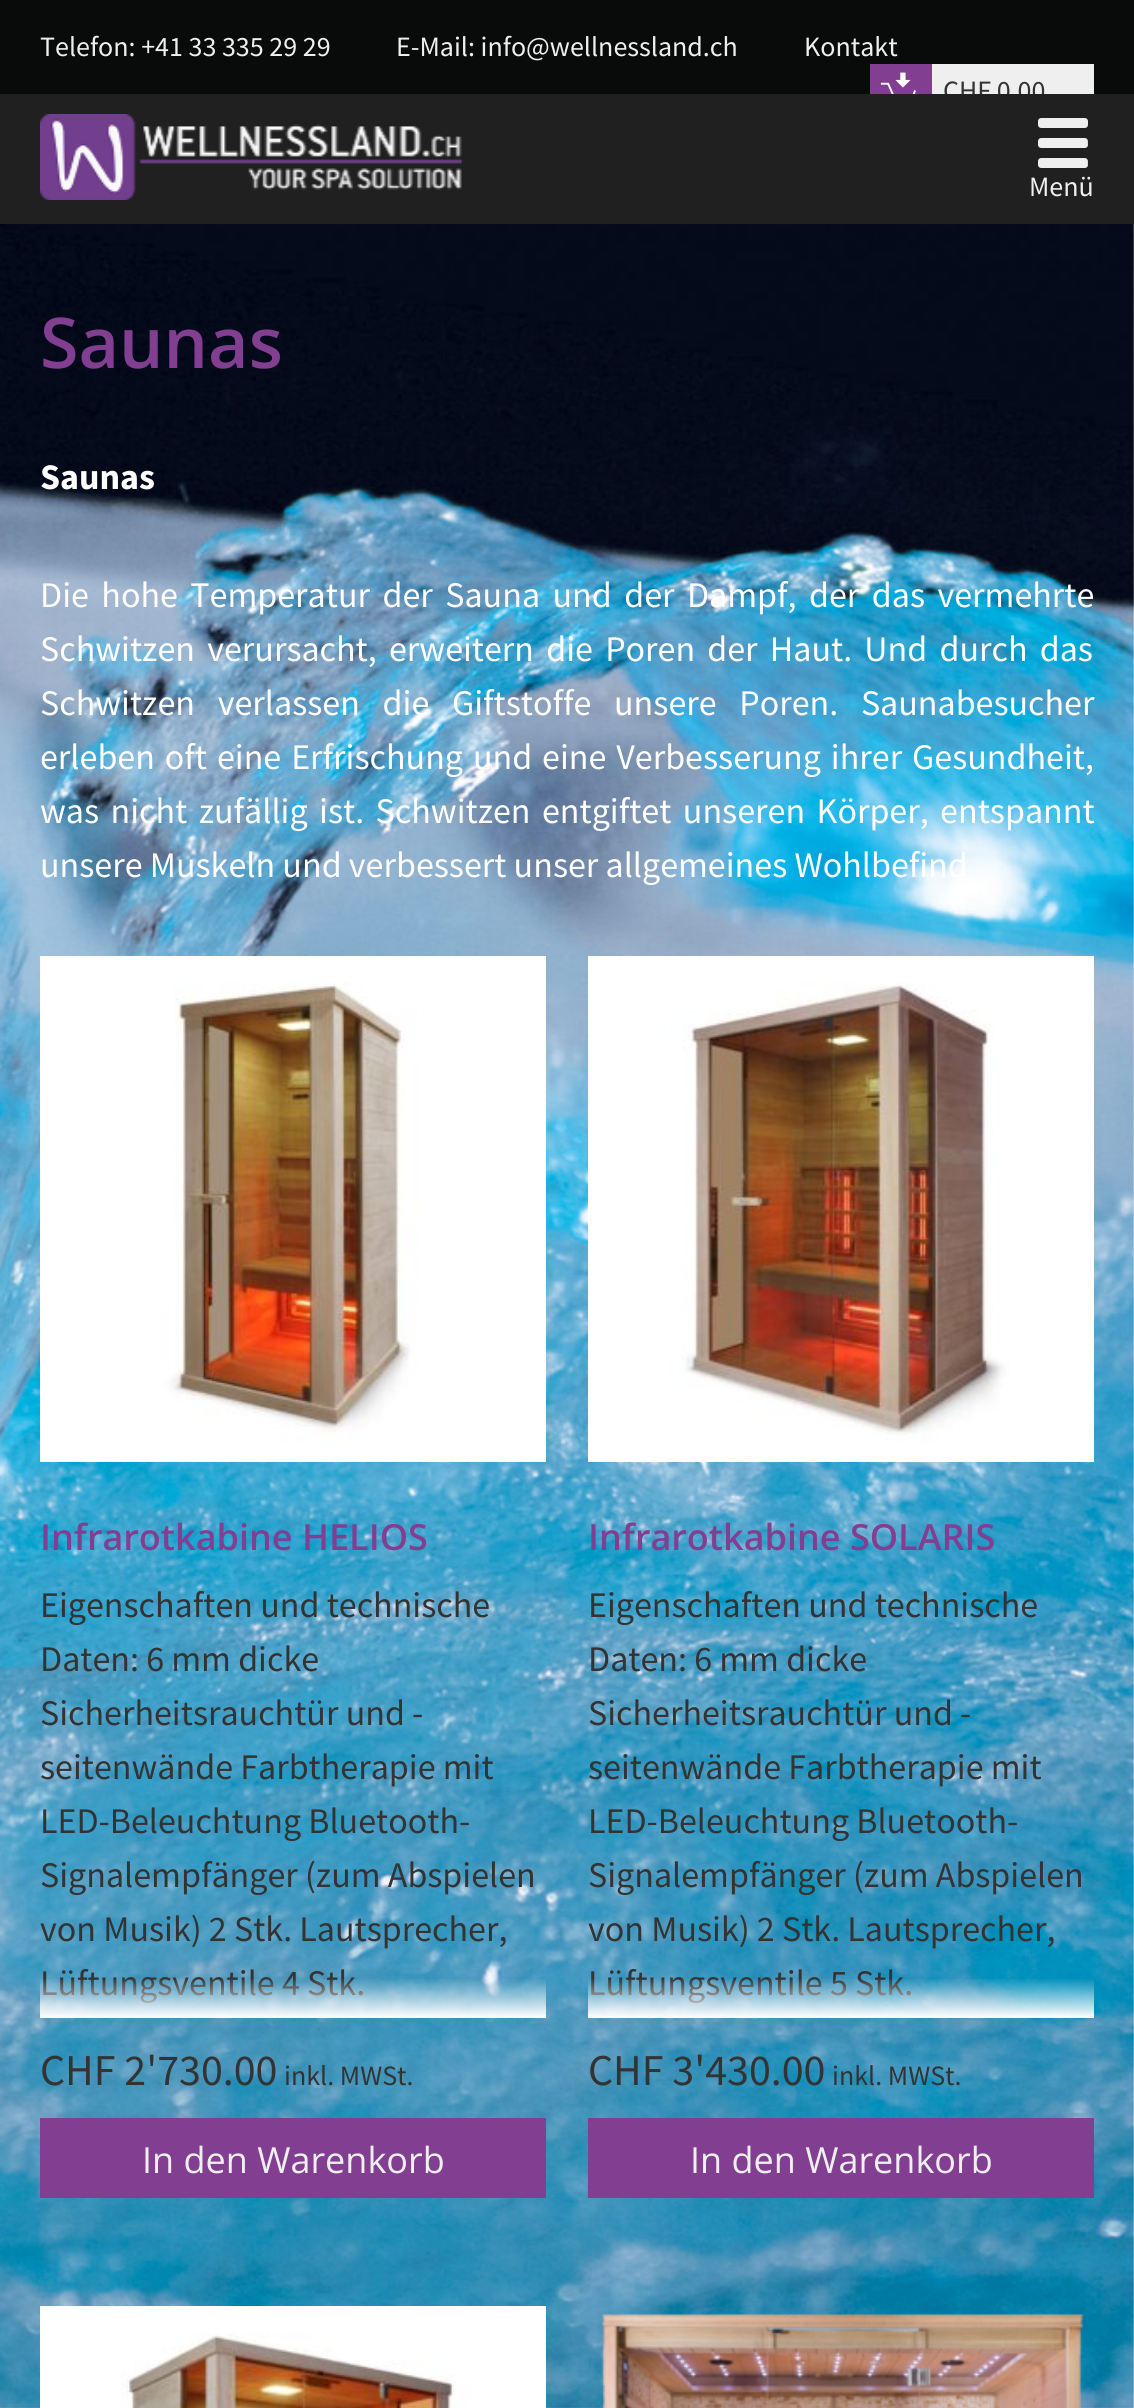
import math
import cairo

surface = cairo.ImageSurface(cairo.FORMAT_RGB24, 1134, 2408)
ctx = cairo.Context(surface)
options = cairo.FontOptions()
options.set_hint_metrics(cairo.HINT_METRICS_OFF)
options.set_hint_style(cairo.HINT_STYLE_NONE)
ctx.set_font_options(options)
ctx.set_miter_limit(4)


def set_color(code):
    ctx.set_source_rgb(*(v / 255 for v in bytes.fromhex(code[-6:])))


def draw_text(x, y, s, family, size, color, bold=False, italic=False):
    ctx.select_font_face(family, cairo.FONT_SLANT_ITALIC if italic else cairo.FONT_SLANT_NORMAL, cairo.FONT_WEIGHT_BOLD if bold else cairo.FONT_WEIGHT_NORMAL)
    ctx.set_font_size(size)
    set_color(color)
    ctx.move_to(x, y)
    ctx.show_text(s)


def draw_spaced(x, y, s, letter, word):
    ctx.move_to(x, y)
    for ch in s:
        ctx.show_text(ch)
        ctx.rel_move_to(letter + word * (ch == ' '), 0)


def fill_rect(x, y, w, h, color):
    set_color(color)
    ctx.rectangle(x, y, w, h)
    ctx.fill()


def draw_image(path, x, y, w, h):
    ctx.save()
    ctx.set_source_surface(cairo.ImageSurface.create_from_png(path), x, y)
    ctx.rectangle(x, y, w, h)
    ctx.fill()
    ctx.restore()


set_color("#ffffff")
ctx.paint()
draw_image("assets/img1.png", 0, 224, 1134, 2184)
fill_rect(0, 0, 1134, 94, "#090a0a")
draw_text(40, 56, "Telefon: +41 33 335 29 29", "Source Sans Pro", 28, "#efefef")
draw_text(396, 56, "E-Mail: info@wellnessland.ch", "Source Sans Pro", 28, "#efefef")
draw_text(804, 56, "Kontakt", "Source Sans Pro", 28, "#efefef")
fill_rect(932, 64, 162, 30, "#efefef")
fill_rect(870, 64, 62, 30, "#823f91")
draw_image("assets/img2.png", 880, 72, 36, 22)
draw_text(943, 100, "CHF 0.00", "Source Sans Pro", 28, "#333333")
fill_rect(0, 94, 1134, 130, "#202020")
draw_image("assets/img3.png", 40, 114, 422, 86)
draw_image("assets/img4.png", 1038, 118, 50, 50)
draw_text(1029, 196, "Menü", "Source Sans Pro", 28, "#efefef")
draw_text(40, 368, "Saunas", "Open Sans SemiBold", 70, "#823f91")
draw_text(40, 489, "Saunas", "Source Sans Pro", 36, "#ffffff", bold=True)
ctx.select_font_face("Source Sans Pro")
draw_spaced(40, 607, "Die hohe Temperatur der Sauna und der Dampf, der das vermehrte", 0, 5.25)
draw_spaced(40, 661, "Schwitzen verursacht, erweitern die Poren der Haut. Und durch das", 0, 5)
draw_spaced(40, 715, "Schwitzen verlassen die Giftstoffe unsere Poren. Saunabesucher", 0, 15.5)
draw_spaced(40, 769, "erleben oft eine Erfrischung und eine Verbesserung ihrer Gesundheit,", 0, 2.75)
draw_spaced(40, 823, "was nicht zufällig ist. Schwitzen entgiftet unseren Körper, entspannt", 0, 4.25)
draw_text(40, 877, "unsere Muskeln und verbessert unser allgemeines Wohlbefind", "Source Sans Pro", 36, "#ffffff")
draw_image("assets/img5.png", 40, 956, 506, 506)
draw_text(40, 1550, "Infrarotkabine HELIOS", "Open Sans SemiBold", 36, "#823f91")
draw_text(40, 1617, "Eigenschaften und technische", "Source Sans Pro", 36, "#333333")
draw_text(40, 1671, "Daten: 6 mm dicke", "Source Sans Pro", 36, "#333333")
draw_text(40, 1725, "Sicherheitsrauchtür und -", "Source Sans Pro", 36, "#333333")
draw_text(40, 1779, "seitenwände Farbtherapie mit", "Source Sans Pro", 36, "#333333")
draw_text(40, 1833, "LED-Beleuchtung Bluetooth-", "Source Sans Pro", 36, "#333333")
draw_text(40, 1887, "Signalempfänger (zum Abspielen", "Source Sans Pro", 36, "#333333")
draw_text(40, 1941, "von Musik) 2 Stk. Lautsprecher,", "Source Sans Pro", 36, "#333333")
draw_text(40, 1995, "Lüftungsventile 4 Stk.", "Source Sans Pro", 36, "#333333")
gradient = cairo.LinearGradient(293, 1978, 293, 2018)
gradient.add_color_stop_rgba(0, 1, 1, 1, 0)
gradient.add_color_stop_rgba(1, 1, 1, 1, 1)
ctx.set_source(gradient)
ctx.rectangle(40, 1979, 506, 39)
ctx.fill()
draw_text(40, 2085, "CHF 2'730.00", "Source Sans Pro", 44, "#333333")
draw_text(284, 2085, "inkl. MWSt.", "Source Sans Pro", 28, "#333333")
fill_rect(40, 2118, 506, 80, "#823f91")
draw_text(142, 2173, "In den Warenkorb", "Open Sans", 36, "#efefef")
draw_image("assets/img6.png", 588, 956, 506, 506)
draw_text(588, 1550, "Infrarotkabine SOLARIS", "Open Sans SemiBold", 36, "#823f91")
draw_text(588, 1617, "Eigenschaften und technische", "Source Sans Pro", 36, "#333333")
draw_text(588, 1671, "Daten: 6 mm dicke", "Source Sans Pro", 36, "#333333")
draw_text(588, 1725, "Sicherheitsrauchtür und -", "Source Sans Pro", 36, "#333333")
draw_text(588, 1779, "seitenwände Farbtherapie mit", "Source Sans Pro", 36, "#333333")
draw_text(588, 1833, "LED-Beleuchtung Bluetooth-", "Source Sans Pro", 36, "#333333")
draw_text(588, 1887, "Signalempfänger (zum Abspielen", "Source Sans Pro", 36, "#333333")
draw_text(588, 1941, "von Musik) 2 Stk. Lautsprecher,", "Source Sans Pro", 36, "#333333")
draw_text(588, 1995, "Lüftungsventile 5 Stk.", "Source Sans Pro", 36, "#333333")
gradient = cairo.LinearGradient(841, 1978, 841, 2018)
gradient.add_color_stop_rgba(0, 1, 1, 1, 0)
gradient.add_color_stop_rgba(1, 1, 1, 1, 1)
ctx.set_source(gradient)
ctx.rectangle(588, 1979, 506, 39)
ctx.fill()
draw_text(588, 2085, "CHF 3'430.00", "Source Sans Pro", 44, "#333333")
draw_text(832, 2085, "inkl. MWSt.", "Source Sans Pro", 28, "#333333")
fill_rect(588, 2118, 506, 80, "#823f91")
draw_text(690, 2173, "In den Warenkorb", "Open Sans", 36, "#efefef")
draw_image("assets/img7.png", 40, 2306, 506, 102)
draw_image("assets/img8.png", 601, 2313, 484, 95)
surface.write_to_png("output.png")
